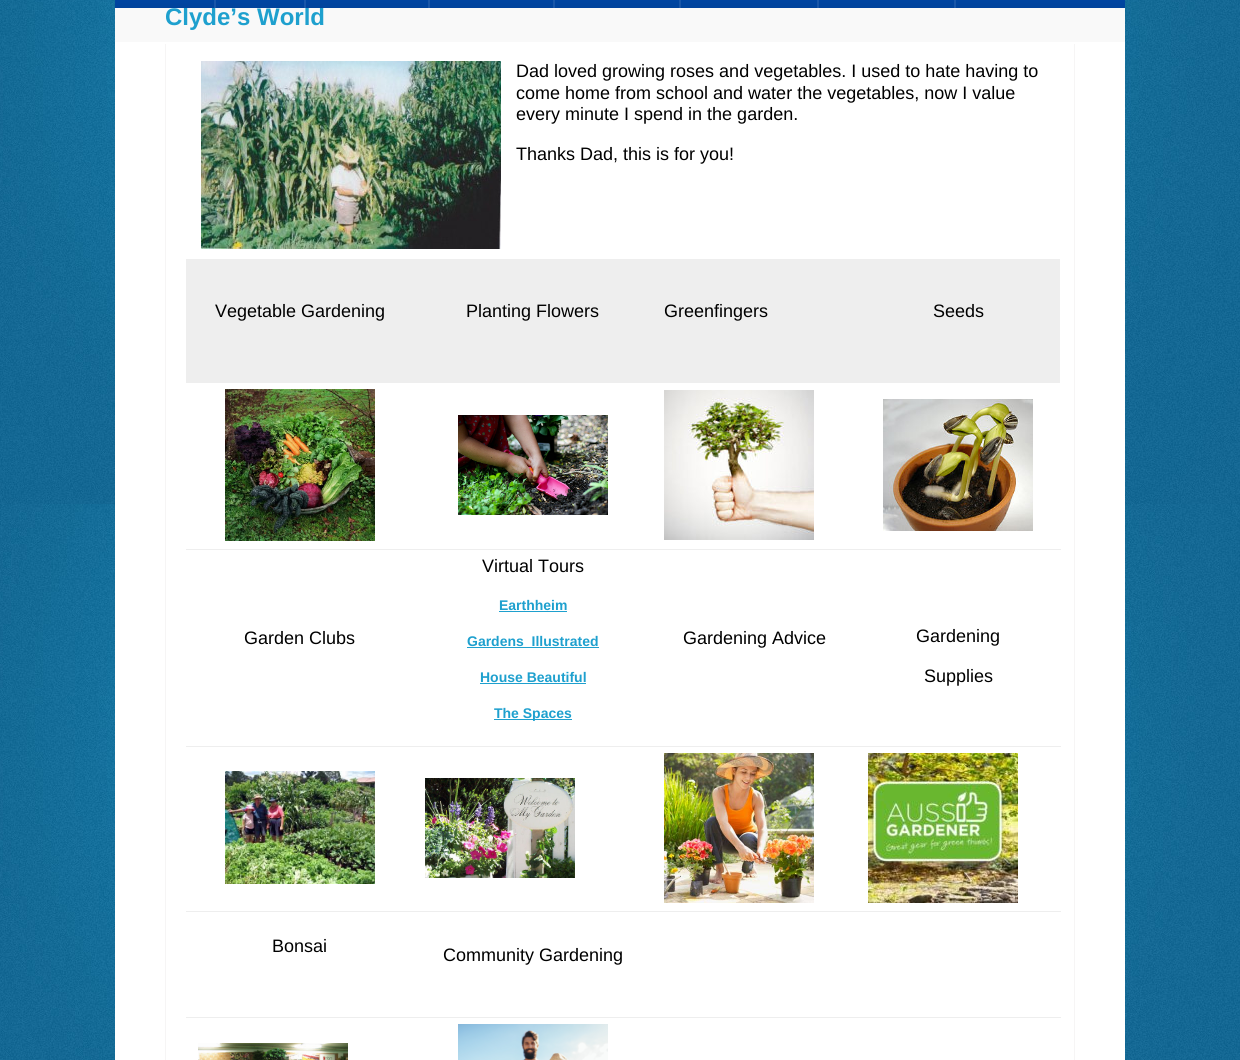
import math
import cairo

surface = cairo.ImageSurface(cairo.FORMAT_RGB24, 1240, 1060)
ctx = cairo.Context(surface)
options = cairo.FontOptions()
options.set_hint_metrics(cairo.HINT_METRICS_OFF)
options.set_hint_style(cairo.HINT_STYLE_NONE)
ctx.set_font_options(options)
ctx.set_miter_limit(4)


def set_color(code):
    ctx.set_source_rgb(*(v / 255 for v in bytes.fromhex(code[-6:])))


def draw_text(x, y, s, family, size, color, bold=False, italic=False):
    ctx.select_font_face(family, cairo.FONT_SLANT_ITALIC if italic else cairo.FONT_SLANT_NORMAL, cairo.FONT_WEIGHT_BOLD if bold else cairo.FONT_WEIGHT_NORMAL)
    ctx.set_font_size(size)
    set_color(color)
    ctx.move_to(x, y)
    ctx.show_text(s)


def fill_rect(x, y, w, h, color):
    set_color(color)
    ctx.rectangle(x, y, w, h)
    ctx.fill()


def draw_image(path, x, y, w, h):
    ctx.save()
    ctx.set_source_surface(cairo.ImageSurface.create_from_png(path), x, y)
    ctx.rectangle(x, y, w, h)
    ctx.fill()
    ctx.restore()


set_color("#ffffff")
ctx.paint()
draw_image("assets/img1.png", 0, 0, 1240, 1060)
fill_rect(115, 8, 1010, 34, "#f9f9f9")
draw_text(165, 25, "Clyde’s World", "Liberation Sans", 24, "#1ea0ce", bold=True)
gradient = cairo.LinearGradient(620, -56, 620, 8)
gradient.add_color_stop_rgba(0, 0, 0.337, 0.78, 1)
gradient.add_color_stop_rgba(1, 0, 0.263, 0.612, 1)
ctx.set_source(gradient)
ctx.rectangle(115, 0, 1010, 8)
ctx.fill()
ctx.set_source_rgba(1, 1, 1, 0.1)
ctx.rectangle(215, 0, 1, 8)
ctx.fill()
ctx.rectangle(214, 0, 1, 8)
ctx.fill()
ctx.rectangle(305, 0, 1, 8)
ctx.fill()
ctx.rectangle(304, 0, 1, 8)
ctx.fill()
ctx.rectangle(429, 0, 1, 8)
ctx.fill()
ctx.rectangle(428, 0, 1, 8)
ctx.fill()
ctx.rectangle(554, 0, 1, 8)
ctx.fill()
ctx.rectangle(553, 0, 1, 8)
ctx.fill()
ctx.rectangle(680, 0, 1, 8)
ctx.fill()
ctx.rectangle(679, 0, 1, 8)
ctx.fill()
ctx.rectangle(818, 0, 1, 8)
ctx.fill()
ctx.rectangle(817, 0, 1, 8)
ctx.fill()
ctx.rectangle(955, 0, 1, 8)
ctx.fill()
ctx.rectangle(954, 0, 1, 8)
ctx.fill()
fill_rect(115, 42, 1010, 1018, "#ffffff")
fill_rect(1074, 44, 1, 1016, "#f6f5f5")
fill_rect(165, 44, 1, 1016, "#f6f5f5")
draw_image("assets/img2.png", 201, 61, 300, 188)
draw_text(516, 77, "Dad loved growing roses and vegetables. I used to hate having to", "Liberation Sans", 18, "#000000")
draw_text(516, 99, "come home from school and water the vegetables, now I value", "Liberation Sans", 18, "#000000")
draw_text(516, 120, "every minute I spend in the garden.", "Liberation Sans", 18, "#000000")
draw_text(516, 160, "Thanks Dad, this is for you!", "Liberation Sans", 18, "#000000")
fill_rect(186, 259, 874, 124, "#eeeeee")
draw_text(215, 317, "Vegetable Gardening", "Liberation Sans", 18, "#000000")
draw_text(466, 317, "Planting Flowers", "Liberation Sans", 18, "#000000")
draw_text(664, 317, "Greenfingers", "Liberation Sans", 18, "#000000")
draw_text(933, 317, "Seeds", "Liberation Sans", 18, "#000000")
draw_image("assets/img3.png", 225, 389, 150, 152)
draw_image("assets/img4.png", 664, 390, 150, 150)
fill_rect(186, 549, 875, 1, "#eeeeee")
draw_image("assets/img5.png", 883, 399, 150, 132)
draw_image("assets/img6.png", 458, 415, 150, 100)
draw_text(244, 644, "Garden Clubs", "Liberation Sans", 18, "#000000")
draw_text(482, 572, "Virtual Tours", "Liberation Sans", 18, "#000000")
draw_text(499, 610, "Earthheim", "Liberation Sans", 14, "#1ea0ce", bold=True)
fill_rect(499, 611, 68, 1, "#1ea0ce")
draw_text(467, 646, "Gardens  Illustrated", "Liberation Sans", 14, "#1ea0ce", bold=True)
fill_rect(467, 647, 132, 1, "#1ea0ce")
draw_text(480, 682, "House Beautiful", "Liberation Sans", 14, "#1ea0ce", bold=True)
fill_rect(480, 683, 106, 1, "#1ea0ce")
fill_rect(494, 719, 78, 1, "#1ea0ce")
draw_text(494, 718, "The Spaces", "Liberation Sans", 14, "#1ea0ce", bold=True)
draw_text(683, 644, "Gardening Advice", "Liberation Sans", 18, "#000000")
fill_rect(186, 746, 875, 1, "#eeeeee")
draw_text(916, 642, "Gardening", "Liberation Sans", 18, "#000000")
draw_text(924, 682, "Supplies", "Liberation Sans", 18, "#000000")
fill_rect(186, 911, 875, 1, "#eeeeee")
draw_image("assets/img7.png", 868, 753, 150, 150)
draw_image("assets/img8.png", 225, 771, 150, 113)
draw_image("assets/img9.png", 425, 778, 150, 100)
draw_image("assets/img10.png", 664, 753, 150, 150)
draw_text(272, 952, "Bonsai", "Liberation Sans", 18, "#000000")
draw_text(443, 961, "Community Gardening", "Liberation Sans", 18, "#000000")
fill_rect(186, 1017, 875, 1, "#eeeeee")
draw_image("assets/img11.png", 198, 1043, 150, 17)
draw_image("assets/img12.png", 458, 1024, 150, 36)
surface.write_to_png("output.png")
